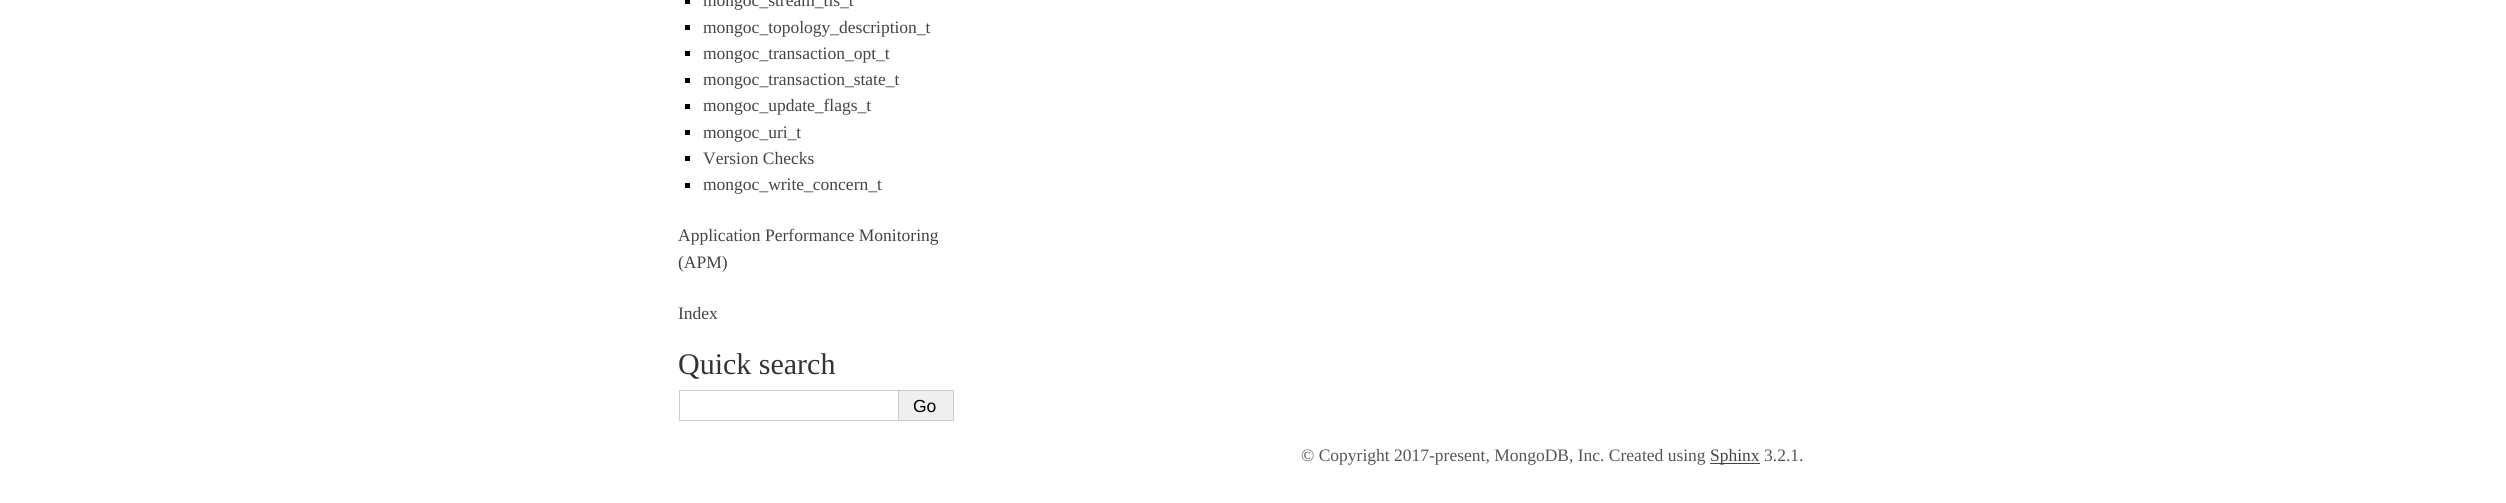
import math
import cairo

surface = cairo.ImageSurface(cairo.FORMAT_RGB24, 2506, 503)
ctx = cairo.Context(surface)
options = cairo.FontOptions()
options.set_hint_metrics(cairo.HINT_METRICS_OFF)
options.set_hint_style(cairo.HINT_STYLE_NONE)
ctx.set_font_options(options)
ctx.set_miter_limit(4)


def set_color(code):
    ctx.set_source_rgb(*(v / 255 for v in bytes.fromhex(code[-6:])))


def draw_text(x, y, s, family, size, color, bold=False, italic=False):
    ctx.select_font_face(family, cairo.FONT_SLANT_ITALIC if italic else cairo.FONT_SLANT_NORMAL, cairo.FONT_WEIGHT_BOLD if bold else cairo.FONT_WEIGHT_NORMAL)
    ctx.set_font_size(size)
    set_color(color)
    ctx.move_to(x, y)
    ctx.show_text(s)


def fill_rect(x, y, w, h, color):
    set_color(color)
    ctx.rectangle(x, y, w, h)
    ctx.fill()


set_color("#ffffff")
ctx.paint()
fill_rect(685, 0, 5, 4, "#000000")
draw_text(703, 6, "mongoc_stream_tls_t", "Liberation Serif", 17.5, "#444444")
fill_rect(685, 25, 5, 5, "#000000")
draw_text(703, 33, "mongoc_topology_description_t", "Liberation Serif", 17.5, "#444444")
fill_rect(685, 51, 5, 5, "#000000")
draw_text(703, 59, "mongoc_transaction_opt_t", "Liberation Serif", 17.5, "#444444")
fill_rect(685, 78, 5, 5, "#000000")
draw_text(703, 85, "mongoc_transaction_state_t", "Liberation Serif", 17.5, "#444444")
fill_rect(685, 104, 5, 5, "#000000")
draw_text(703, 111, "mongoc_update_flags_t", "Liberation Serif", 17.5, "#444444")
fill_rect(685, 130, 5, 5, "#000000")
draw_text(703, 138, "mongoc_uri_t", "Liberation Serif", 17.5, "#444444")
fill_rect(685, 156, 5, 5, "#000000")
draw_text(703, 164, "Version Checks", "Liberation Serif", 17.5, "#444444")
fill_rect(685, 183, 5, 5, "#000000")
draw_text(703, 190, "mongoc_write_concern_t", "Liberation Serif", 17.5, "#444444")
draw_text(678, 241, "Application Performance Monitoring", "Liberation Serif", 17.5, "#444444")
draw_text(678, 268, "(APM)", "Liberation Serif", 17.5, "#444444")
draw_text(678, 319, "Index", "Liberation Serif", 17.5, "#444444")
draw_text(678, 374, "Quick search", "Liberation Serif", 30, "#333333")
ctx.rectangle(679.5, 390.5, 219, 30)
set_color("#cccccc")
ctx.set_line_width(1)
ctx.stroke()
fill_rect(899, 391, 54, 29, "#efefef")
fill_rect(899, 390, 55, 1, "#cccccc")
fill_rect(953, 390, 1, 31, "#cccccc")
fill_rect(899, 420, 55, 1, "#cccccc")
draw_text(913, 412, "Go", "Liberation Sans", 17.5, "#000000")
draw_text(1301, 461, "© Copyright 2017-present, MongoDB, Inc. Created using", "Liberation Serif", 17.5, "#555555")
fill_rect(1710, 463, 50, 1, "#444444")
draw_text(1710, 461, "Sphinx", "Liberation Serif", 17.5, "#444444")
draw_text(1764, 461, "3.2.1.", "Liberation Serif", 17.5, "#555555")
surface.write_to_png("output.png")
